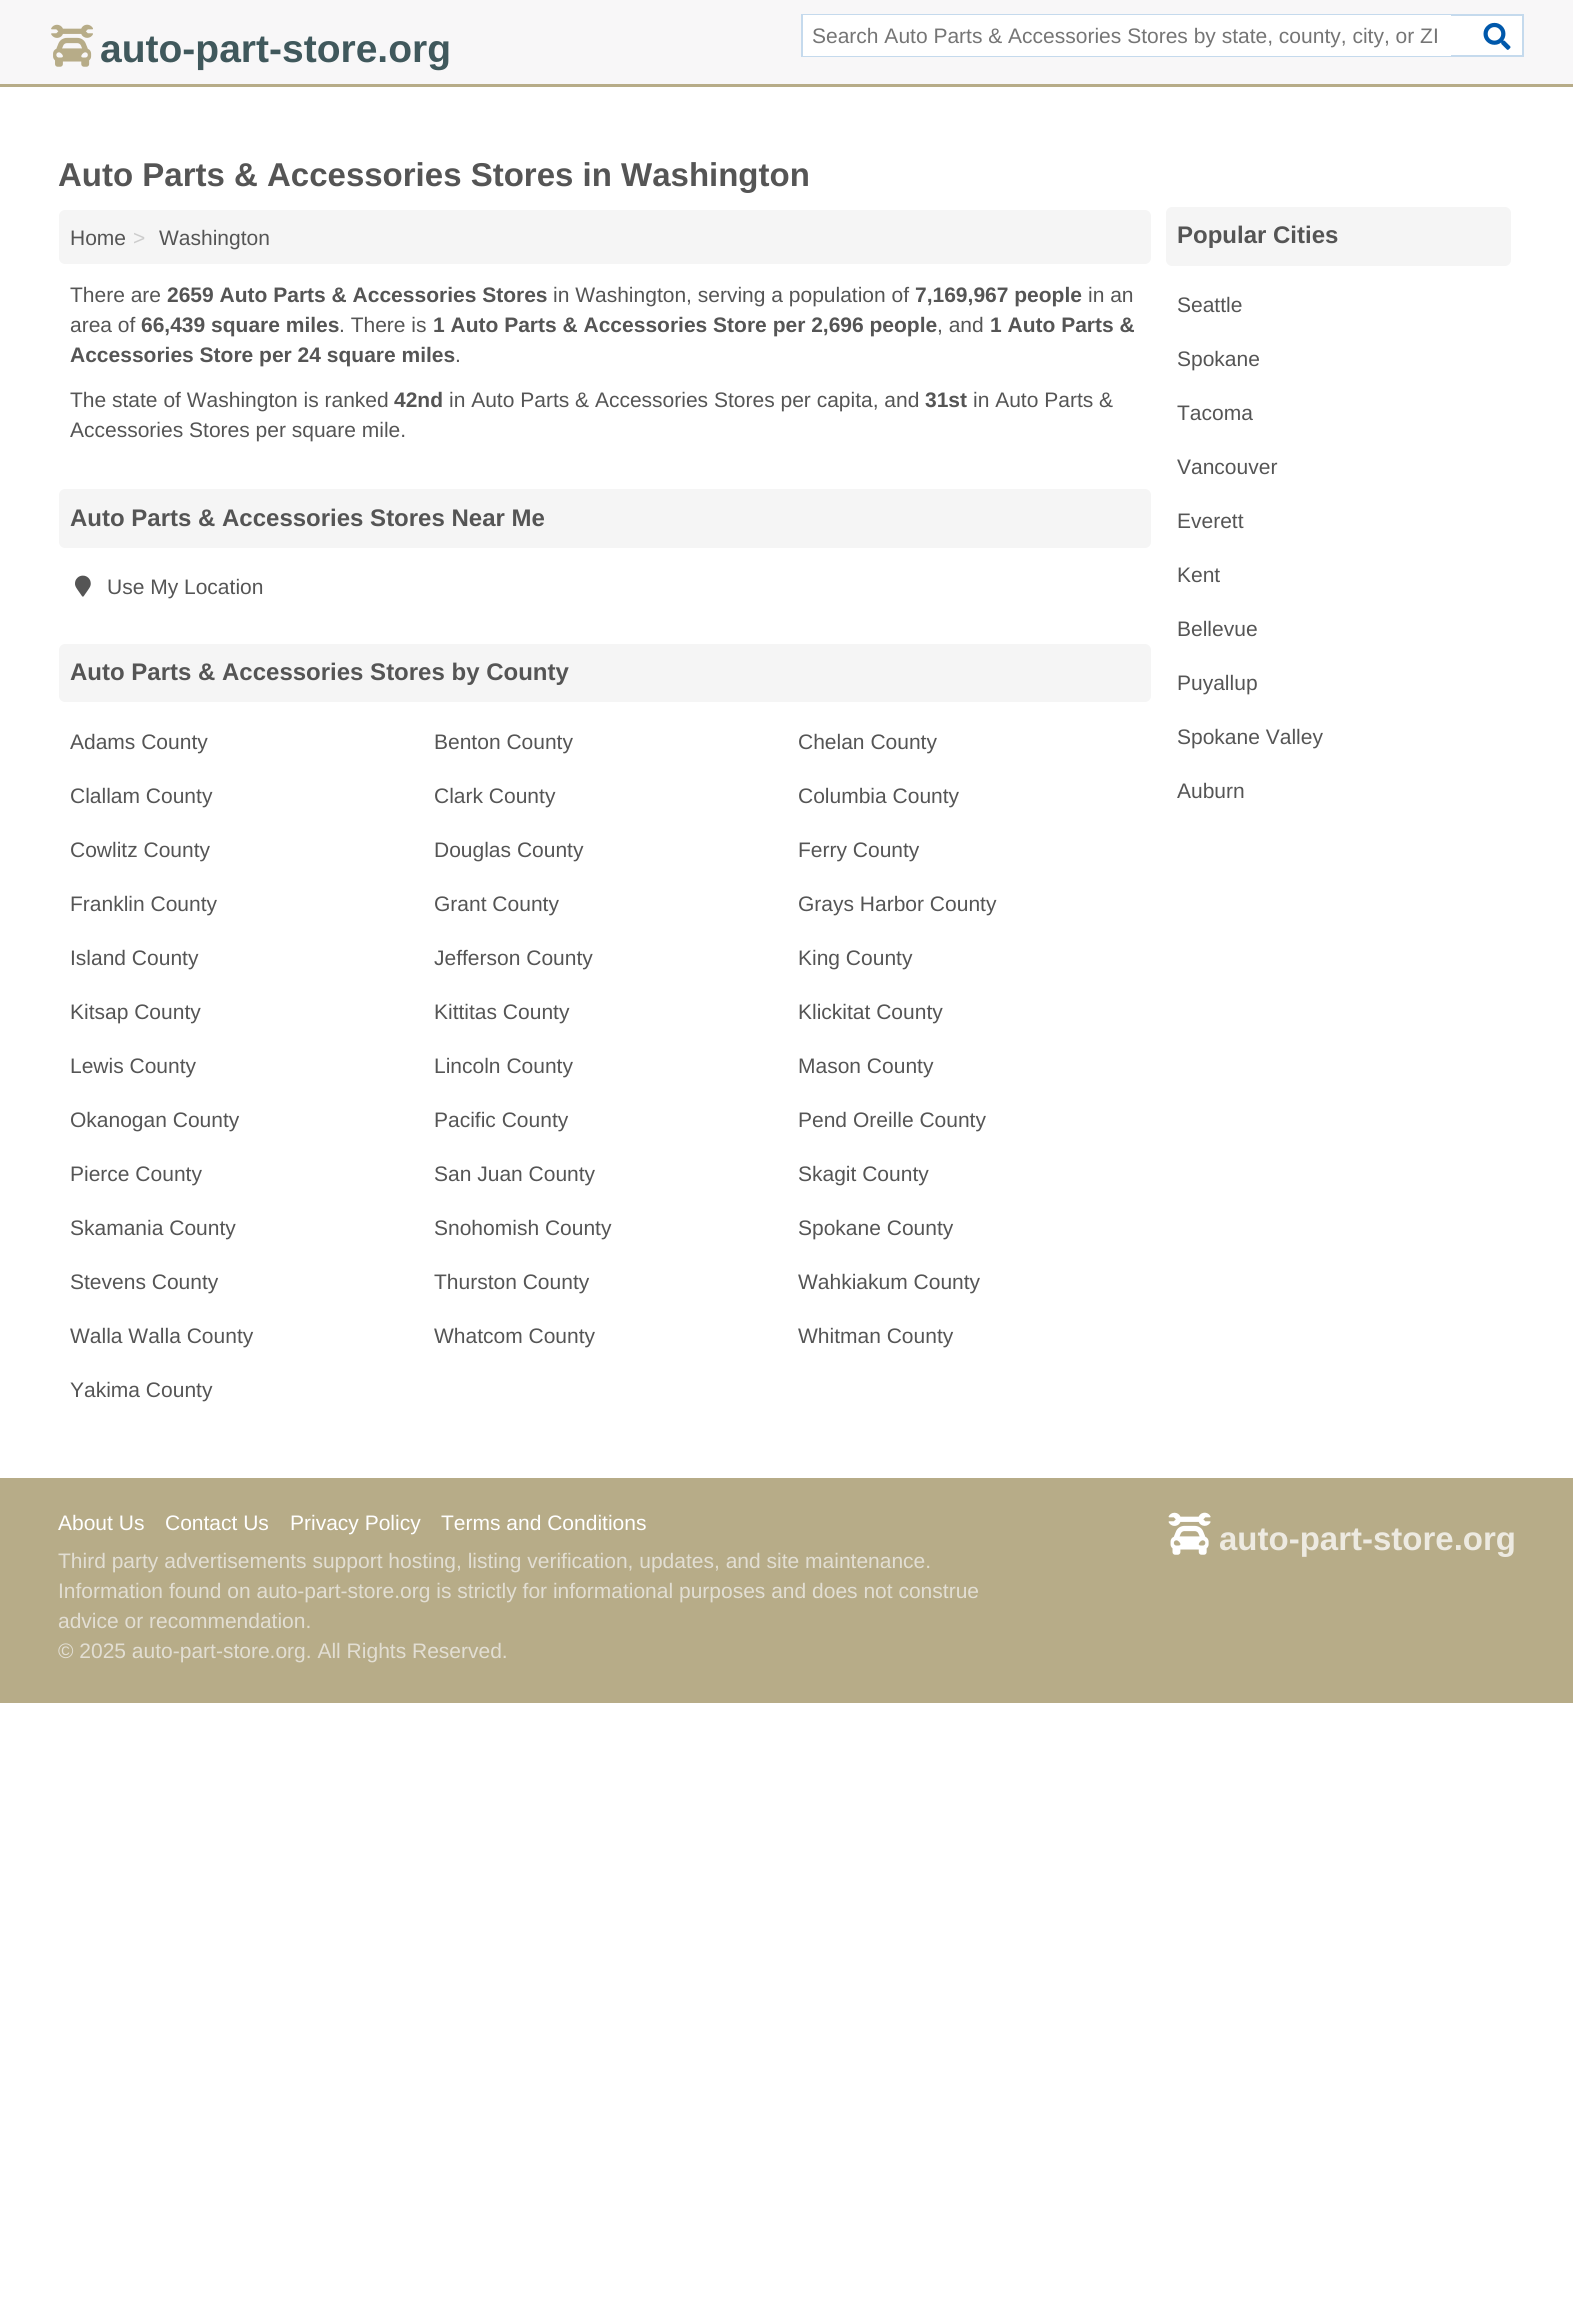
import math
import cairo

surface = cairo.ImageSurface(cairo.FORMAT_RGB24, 1573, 2307)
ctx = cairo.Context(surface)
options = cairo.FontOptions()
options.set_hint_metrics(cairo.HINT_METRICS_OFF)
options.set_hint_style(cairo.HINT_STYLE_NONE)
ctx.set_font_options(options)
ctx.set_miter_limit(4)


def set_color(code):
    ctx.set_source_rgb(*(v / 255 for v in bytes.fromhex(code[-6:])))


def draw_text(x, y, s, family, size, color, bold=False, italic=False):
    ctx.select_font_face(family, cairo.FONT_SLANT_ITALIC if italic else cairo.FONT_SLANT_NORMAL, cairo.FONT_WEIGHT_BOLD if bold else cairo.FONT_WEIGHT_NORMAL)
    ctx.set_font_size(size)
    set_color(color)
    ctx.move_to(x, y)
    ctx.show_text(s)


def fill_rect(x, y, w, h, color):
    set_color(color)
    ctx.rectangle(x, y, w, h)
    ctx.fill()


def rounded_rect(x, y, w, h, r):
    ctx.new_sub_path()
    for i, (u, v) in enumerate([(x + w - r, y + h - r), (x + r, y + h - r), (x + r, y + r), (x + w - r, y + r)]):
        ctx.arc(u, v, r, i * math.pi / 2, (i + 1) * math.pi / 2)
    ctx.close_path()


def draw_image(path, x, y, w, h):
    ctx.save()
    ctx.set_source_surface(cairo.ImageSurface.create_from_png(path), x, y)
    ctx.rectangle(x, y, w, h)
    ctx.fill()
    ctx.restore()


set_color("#ffffff")
ctx.paint()
fill_rect(0, 0, 1573, 84, "#f8f7f8")
fill_rect(0, 84, 1573, 3, "#b7ac88")
draw_image("assets/img1.png", 51, 24, 42, 43)
draw_text(100, 62, "auto-part-store.org", "Liberation Sans", 39, "#40585c", bold=True)
fill_rect(1451, 16, 71, 39, "#ffffff")
ctx.rectangle(802, 15, 721, 41)
set_color("#c5daed")
ctx.stroke()
fill_rect(803, 15, 648, 41, "#ffffff")
draw_text(812, 43, "Search Auto Parts & Accessories Stores by state, county, city, or ZI", "Liberation Sans", 21, "#757575")
draw_image("assets/img2.png", 1483, 22, 28, 28)
draw_text(58, 186, "Auto Parts & Accessories Stores in Washington", "Liberation Sans", 33, "#555555", bold=True)
set_color("#f5f5f5")
rounded_rect(59, 210, 1092, 54, 6)
ctx.fill()
draw_text(70, 245, "Home", "Liberation Sans", 21, "#555555")
draw_text(133, 245, ">", "Liberation Sans", 21, "#cccccc")
draw_text(159, 245, "Washington", "Liberation Sans", 21, "#555555")
draw_text(70, 302, "There are", "Liberation Sans", 21, "#555555")
draw_text(167, 302, "2659 Auto Parts & Accessories Stores", "Liberation Sans", 21, "#555555", bold=True)
draw_text(553, 302, "in Washington, serving a population of", "Liberation Sans", 21, "#555555")
draw_text(915, 302, "7,169,967 people", "Liberation Sans", 21, "#555555", bold=True)
draw_text(1088, 302, "in an", "Liberation Sans", 21, "#555555")
draw_text(70, 332, "area of", "Liberation Sans", 21, "#555555")
draw_text(141, 332, "66,439 square miles", "Liberation Sans", 21, "#555555", bold=True)
draw_text(339, 332, ". There is", "Liberation Sans", 21, "#555555")
draw_text(433, 332, "1 Auto Parts & Accessories Store per 2,696 people", "Liberation Sans", 21, "#555555", bold=True)
draw_text(937, 332, ", and", "Liberation Sans", 21, "#555555")
draw_text(990, 332, "1 Auto Parts &", "Liberation Sans", 21, "#555555", bold=True)
draw_text(70, 362, "Accessories Store per 24 square miles", "Liberation Sans", 21, "#555555", bold=True)
draw_text(455, 362, ".", "Liberation Sans", 21, "#555555")
draw_text(70, 407, "The state of Washington is ranked", "Liberation Sans", 21, "#555555")
draw_text(394, 407, "42nd", "Liberation Sans", 21, "#555555", bold=True)
draw_text(449, 407, "in Auto Parts & Accessories Stores per capita, and", "Liberation Sans", 21, "#555555")
draw_text(925, 407, "31st", "Liberation Sans", 21, "#555555", bold=True)
draw_text(973, 407, "in Auto Parts &", "Liberation Sans", 21, "#555555")
draw_text(70, 437, "Accessories Stores per square mile.", "Liberation Sans", 21, "#555555")
set_color("#f5f5f5")
rounded_rect(59, 489, 1092, 59, 6)
ctx.fill()
draw_text(70, 526, "Auto Parts & Accessories Stores Near Me", "Liberation Sans", 24, "#555555", bold=True)
draw_image("assets/img3.png", 75, 575, 16, 22)
draw_text(107, 594, "Use My Location", "Liberation Sans", 21, "#555555")
set_color("#f5f5f5")
rounded_rect(59, 644, 1092, 58, 6)
ctx.fill()
draw_text(70, 680, "Auto Parts & Accessories Stores by County", "Liberation Sans", 24, "#555555", bold=True)
draw_text(70, 749, "Adams County", "Liberation Sans", 21, "#555555")
draw_text(434, 749, "Benton County", "Liberation Sans", 21, "#555555")
draw_text(798, 749, "Chelan County", "Liberation Sans", 21, "#555555")
draw_text(70, 803, "Clallam County", "Liberation Sans", 21, "#555555")
draw_text(434, 803, "Clark County", "Liberation Sans", 21, "#555555")
draw_text(798, 803, "Columbia County", "Liberation Sans", 21, "#555555")
draw_text(70, 857, "Cowlitz County", "Liberation Sans", 21, "#555555")
draw_text(434, 857, "Douglas County", "Liberation Sans", 21, "#555555")
draw_text(798, 857, "Ferry County", "Liberation Sans", 21, "#555555")
draw_text(70, 911, "Franklin County", "Liberation Sans", 21, "#555555")
draw_text(434, 911, "Grant County", "Liberation Sans", 21, "#555555")
draw_text(798, 911, "Grays Harbor County", "Liberation Sans", 21, "#555555")
draw_text(70, 965, "Island County", "Liberation Sans", 21, "#555555")
draw_text(434, 965, "Jefferson County", "Liberation Sans", 21, "#555555")
draw_text(798, 965, "King County", "Liberation Sans", 21, "#555555")
draw_text(70, 1019, "Kitsap County", "Liberation Sans", 21, "#555555")
draw_text(434, 1019, "Kittitas County", "Liberation Sans", 21, "#555555")
draw_text(798, 1019, "Klickitat County", "Liberation Sans", 21, "#555555")
draw_text(70, 1073, "Lewis County", "Liberation Sans", 21, "#555555")
draw_text(434, 1073, "Lincoln County", "Liberation Sans", 21, "#555555")
draw_text(798, 1073, "Mason County", "Liberation Sans", 21, "#555555")
draw_text(70, 1127, "Okanogan County", "Liberation Sans", 21, "#555555")
draw_text(434, 1127, "Pacific County", "Liberation Sans", 21, "#555555")
draw_text(798, 1127, "Pend Oreille County", "Liberation Sans", 21, "#555555")
draw_text(70, 1181, "Pierce County", "Liberation Sans", 21, "#555555")
draw_text(434, 1181, "San Juan County", "Liberation Sans", 21, "#555555")
draw_text(798, 1181, "Skagit County", "Liberation Sans", 21, "#555555")
draw_text(70, 1235, "Skamania County", "Liberation Sans", 21, "#555555")
draw_text(434, 1235, "Snohomish County", "Liberation Sans", 21, "#555555")
draw_text(798, 1235, "Spokane County", "Liberation Sans", 21, "#555555")
draw_text(70, 1289, "Stevens County", "Liberation Sans", 21, "#555555")
draw_text(434, 1289, "Thurston County", "Liberation Sans", 21, "#555555")
draw_text(798, 1289, "Wahkiakum County", "Liberation Sans", 21, "#555555")
draw_text(70, 1343, "Walla Walla County", "Liberation Sans", 21, "#555555")
draw_text(434, 1343, "Whatcom County", "Liberation Sans", 21, "#555555")
draw_text(798, 1343, "Whitman County", "Liberation Sans", 21, "#555555")
draw_text(70, 1397, "Yakima County", "Liberation Sans", 21, "#555555")
set_color("#f5f5f5")
rounded_rect(1166, 207, 345, 59, 6)
ctx.fill()
draw_text(1177, 243, "Popular Cities", "Liberation Sans", 24, "#555555", bold=True)
draw_text(1177, 312, "Seattle", "Liberation Sans", 21, "#555555")
draw_text(1177, 366, "Spokane", "Liberation Sans", 21, "#555555")
draw_text(1177, 420, "Tacoma", "Liberation Sans", 21, "#555555")
draw_text(1177, 474, "Vancouver", "Liberation Sans", 21, "#555555")
draw_text(1177, 528, "Everett", "Liberation Sans", 21, "#555555")
draw_text(1177, 582, "Kent", "Liberation Sans", 21, "#555555")
draw_text(1177, 636, "Bellevue", "Liberation Sans", 21, "#555555")
draw_text(1177, 690, "Puyallup", "Liberation Sans", 21, "#555555")
draw_text(1177, 744, "Spokane Valley", "Liberation Sans", 21, "#555555")
draw_text(1177, 798, "Auburn", "Liberation Sans", 21, "#555555")
fill_rect(0, 1478, 1573, 225, "#b7ac88")
draw_text(58, 1530, "About Us", "Liberation Sans", 21, "#ffffff")
draw_text(165, 1530, "Contact Us", "Liberation Sans", 21, "#ffffff")
draw_text(290, 1530, "Privacy Policy", "Liberation Sans", 21, "#ffffff")
draw_text(441, 1530, "Terms and Conditions", "Liberation Sans", 21, "#ffffff")
draw_text(58, 1568, "Third party advertisements support hosting, listing verification, updates, and site maintenance.", "Liberation Sans", 21, "#e2ded3")
draw_text(58, 1598, "Information found on auto-part-store.org is strictly for informational purposes and does not construe", "Liberation Sans", 21, "#e2ded3")
draw_text(58, 1628, "advice or recommendation.", "Liberation Sans", 21, "#e2ded3")
draw_text(58, 1658, "© 2025 auto-part-store.org. All Rights Reserved.", "Liberation Sans", 21, "#e2ded3")
draw_image("assets/img4.png", 1168, 1512, 43, 43)
draw_text(1219, 1550, "auto-part-store.org", "Liberation Sans", 33, "#edeae1", bold=True)
surface.write_to_png("output.png")
